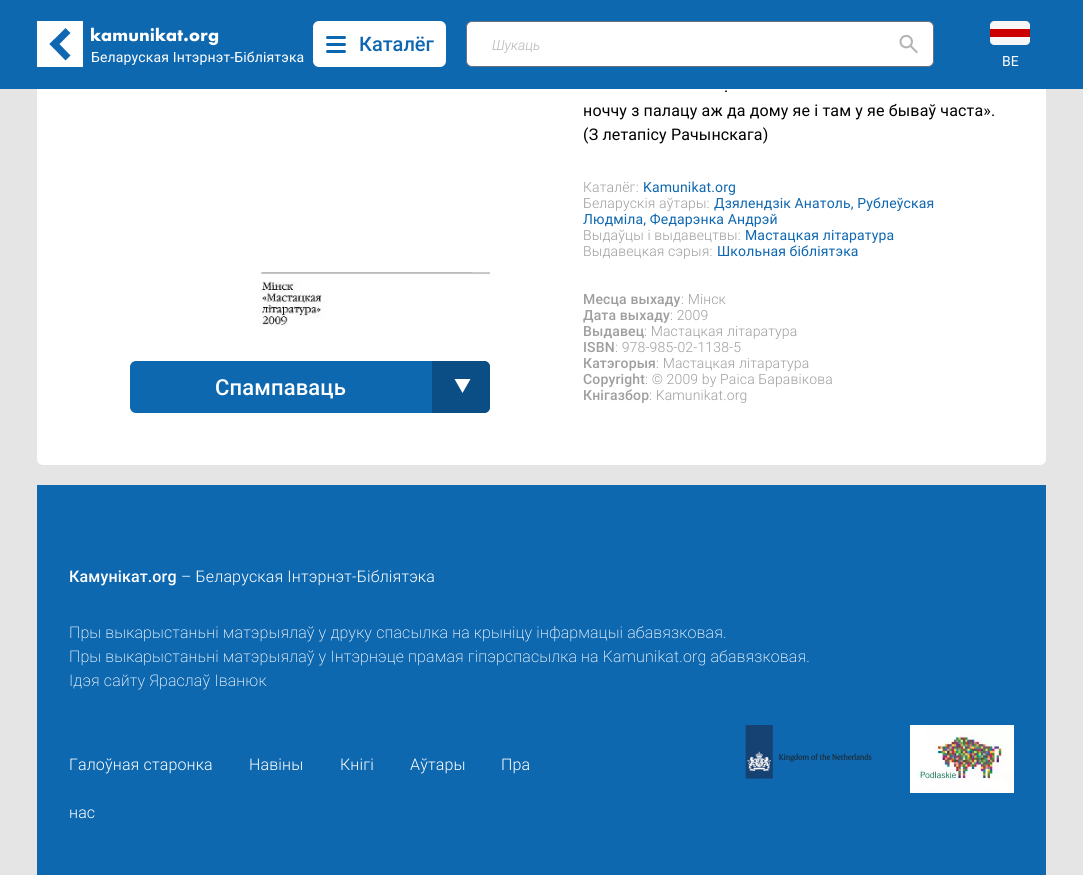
import math
import cairo

surface = cairo.ImageSurface(cairo.FORMAT_RGB24, 1083, 875)
ctx = cairo.Context(surface)
options = cairo.FontOptions()
options.set_hint_metrics(cairo.HINT_METRICS_OFF)
options.set_hint_style(cairo.HINT_STYLE_NONE)
ctx.set_font_options(options)
ctx.set_miter_limit(4)


def set_color(code):
    ctx.set_source_rgb(*(v / 255 for v in bytes.fromhex(code[-6:])))


def draw_text(x, y, s, family, size, color, bold=False, italic=False):
    ctx.select_font_face(family, cairo.FONT_SLANT_ITALIC if italic else cairo.FONT_SLANT_NORMAL, cairo.FONT_WEIGHT_BOLD if bold else cairo.FONT_WEIGHT_NORMAL)
    ctx.set_font_size(size)
    set_color(color)
    ctx.move_to(x, y)
    ctx.show_text(s)


def draw_spaced(x, y, s, letter, word):
    ctx.move_to(x, y)
    for ch in s:
        ctx.show_text(ch)
        ctx.rel_move_to(letter + word * (ch == ' '), 0)


def fill_rect(x, y, w, h, color):
    set_color(color)
    ctx.rectangle(x, y, w, h)
    ctx.fill()


def rounded_rect(x, y, w, h, r):
    ctx.new_sub_path()
    for i, (u, v) in enumerate([(x + w - r, y + h - r), (x + r, y + h - r), (x + r, y + r), (x + w - r, y + r)]):
        ctx.arc(u, v, r, i * math.pi / 2, (i + 1) * math.pi / 2)
    ctx.close_path()


def draw_image(path, x, y, w, h):
    ctx.save()
    ctx.set_source_surface(cairo.ImageSurface.create_from_png(path), x, y)
    ctx.rectangle(x, y, w, h)
    ctx.fill()
    ctx.restore()


set_color("#e5e5e5")
ctx.paint()
set_color("#ffffff")
rounded_rect(37, -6, 1009, 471, 6)
ctx.fill()
fill_rect(0, 0, 1083, 89, "#0e68b0")
fill_rect(37, 21, 46, 46, "#ffffff")
set_color("#0e67b0")
ctx.new_path()
ctx.move_to(49.5, 44)
ctx.line_to(54.5, 39)
ctx.line_to(70.5, 55.5)
ctx.line_to(65.5, 60.5)
ctx.close_path()
ctx.fill()
ctx.new_path()
ctx.move_to(54.5, 49)
ctx.line_to(49.5, 44)
ctx.line_to(65.5, 28)
ctx.line_to(70.5, 33)
ctx.close_path()
ctx.fill()
set_color("#ffffff")
rounded_rect(313, 21, 133, 46, 6)
ctx.fill()
draw_image("assets/img1.png", 326, 36, 20, 17)
draw_text(359, 51, "Каталёг", "Roboto Medium", 20, "#0e67b0")
set_color("#ffffff")
rounded_rect(466.5, 21.5, 467, 45, 5.5)
ctx.fill_preserve()
set_color("#6b7280")
ctx.set_line_width(1)
ctx.stroke()
draw_text(492, 50, "Шукаць", "Roboto Light", 14, "#b5b4b4", italic=True)
draw_image("assets/img2.png", 899, 34, 19, 20)
draw_image("assets/img3.png", 91, 27, 128, 19)
ctx.select_font_face("Roboto")
set_color("#ffffff")
draw_spaced(91, 62, "Беларуская Інтэрнэт-Бібліятэка", 0.15, 0)
set_color("#f7f7f7")
ctx.new_path()
ctx.move_to(994, 21)
ctx.line_to(1026, 21)
ctx.curve_to(1028, 21, 1030, 23, 1030, 25)
ctx.line_to(1030, 29)
ctx.line_to(990, 29)
ctx.line_to(990, 25)
ctx.curve_to(990, 23, 992, 21, 994, 21)
ctx.close_path()
ctx.fill()
ctx.new_path()
ctx.move_to(990, 37)
ctx.line_to(1030, 37)
ctx.line_to(1030, 41)
ctx.curve_to(1030, 43, 1028, 45, 1026, 45)
ctx.line_to(994, 45)
ctx.curve_to(992, 45, 990, 43, 990, 41)
ctx.close_path()
ctx.fill()
fill_rect(990, 29, 40, 8, "#cc0000")
set_color("#ffffff")
draw_spaced(1002, 66, "BE", 0.15, 0)
draw_image("assets/img4.png", 198, 89, 292, 236)
set_color("#0e68b0")
rounded_rect(130, 361, 360, 52, 6)
ctx.fill()
ctx.select_font_face("Roboto Medium")
ctx.set_font_size(22)
set_color("#ffffff")
draw_spaced(215, 395, "Спампаваць", 0.15, 0)
set_color("#0b4e85")
ctx.new_path()
ctx.move_to(432, 361)
ctx.line_to(484, 361)
ctx.curve_to(487.5, 361, 490, 363.5, 490, 367)
ctx.line_to(490, 407)
ctx.curve_to(490, 410.5, 487.5, 413, 484, 413)
ctx.line_to(432, 413)
ctx.close_path()
ctx.fill()
set_color("#ffffff")
ctx.new_path()
ctx.move_to(462.5, 393)
ctx.line_to(470.5, 379)
ctx.line_to(454.5, 379)
ctx.close_path()
ctx.fill()
ctx.select_font_face("Roboto")
ctx.set_font_size(16)
set_color("#000000")
draw_spaced(724, 92, ".", 0.15, 0)
draw_spaced(583, 116, "ноччу з палацу аж да дому яе і там у яе бываў часта».", 0.15, 0)
draw_spaced(583, 140, "(З летапісу Рачынскага)", 0.15, 0)
ctx.select_font_face("Roboto Light")
ctx.set_font_size(14)
set_color("#9e9e9e")
draw_spaced(583, 192, "Каталёг:", 0.15, 0)
ctx.select_font_face("Roboto")
set_color("#0e67b0")
draw_spaced(643, 192, "Kamunikat.org", 0.15, 0)
ctx.select_font_face("Roboto Light")
set_color("#9e9e9e")
draw_spaced(583, 208, "Беларускія аўтары:", 0.15, 0)
ctx.select_font_face("Roboto")
set_color("#0e67b0")
draw_spaced(714, 208, "Дзялендзік Анатоль, Рублеўская", 0.15, 0)
draw_spaced(583, 224, "Людмiла, Федарэнка Андрэй", 0.15, 0)
ctx.select_font_face("Roboto Light")
set_color("#9e9e9e")
draw_spaced(583, 240, "Выдаўцы і выдавецтвы:", 0.15, 0)
ctx.select_font_face("Roboto")
set_color("#0e67b0")
draw_spaced(745, 240, "Мастацкая літаратура", 0.15, 0)
ctx.select_font_face("Roboto Light")
set_color("#9e9e9e")
draw_spaced(583, 256, "Выдавецкая сэрыя:", 0.15, 0)
ctx.select_font_face("Roboto")
set_color("#0e67b0")
draw_spaced(717, 256, "Школьная бібліятэка", 0.15, 0)
ctx.select_font_face("Roboto Medium")
set_color("#9e9e9e")
draw_spaced(583, 304, "Месца выхаду", 0.15, 0)
ctx.select_font_face("Roboto Light")
draw_spaced(681, 304, ": Мінск", 0.15, 0)
ctx.select_font_face("Roboto Medium")
draw_spaced(583, 320, "Дата выхаду", 0.15, 0)
ctx.select_font_face("Roboto Light")
draw_spaced(670, 320, ": 2009", 0.15, 0)
ctx.select_font_face("Roboto Medium")
draw_spaced(583, 336, "Выдавец", 0.15, 0)
ctx.select_font_face("Roboto Light")
draw_spaced(644, 336, ": Мастацкая літаратура", 0.15, 0)
ctx.select_font_face("Roboto Medium")
draw_spaced(583, 352, "ISBN", 0.15, 0)
ctx.select_font_face("Roboto Light")
draw_spaced(615, 352, ": 978-985-02-1138-5", 0.15, 0)
ctx.select_font_face("Roboto Medium")
draw_spaced(583, 368, "Катэгорыя", 0.15, 0)
ctx.select_font_face("Roboto Light")
draw_spaced(656, 368, ": Мастацкая літаратура", 0.15, 0)
ctx.select_font_face("Roboto Medium")
draw_spaced(583, 384, "Copyright", 0.15, 0)
ctx.select_font_face("Roboto Light")
draw_spaced(645, 384, ": © 2009 by Раіса Баравікова", 0.15, 0)
ctx.select_font_face("Roboto Medium")
draw_spaced(583, 400, "Кнігазбор", 0.15, 0)
ctx.select_font_face("Roboto Light")
draw_spaced(649, 400, ": Kamunikat.org", 0.15, 0)
fill_rect(37, 485, 1009, 390, "#0e68b0")
ctx.select_font_face("Roboto Medium")
ctx.set_font_size(16)
set_color("#ffffff")
draw_spaced(69, 582, "Камунікат.org", 0.15, 0)
ctx.select_font_face("Roboto Light")
draw_spaced(181, 582, "– Беларуская Інтэрнэт-Бібліятэка", 0.15, 0)
ctx.select_font_face("Roboto ExtraLight")
draw_spaced(69, 638, "Пры выкарыстаньні матэрыялаў у друку спасылка на крыніцу інфармацыі абавязковая.", 0.15, 0)
draw_spaced(69, 662, "Пры выкарыстаньні матэрыялаў у Інтэрнэце прамая гіпэрспасылка на Kamunikat.org абавязковая.", 0.15, 0)
draw_spaced(69, 686, "Ідэя сайту Яраслаў Іванюк", 0.15, 0)
ctx.select_font_face("Roboto Light")
draw_spaced(69, 770, "Галоўная старонка", 0.15, 0)
draw_spaced(249, 770, "Навіны", 0.15, 0)
draw_spaced(340, 770, "Кнігі", 0.15, 0)
draw_spaced(410, 770, "Аўтары", 0.15, 0)
draw_spaced(501, 770, "Пра", 0.15, 0)
draw_spaced(69, 818, "нас", 0.15, 0)
draw_image("assets/img5.png", 745, 725, 127, 54)
draw_image("assets/img6.png", 910, 725, 104, 68)
surface.write_to_png("output.png")
